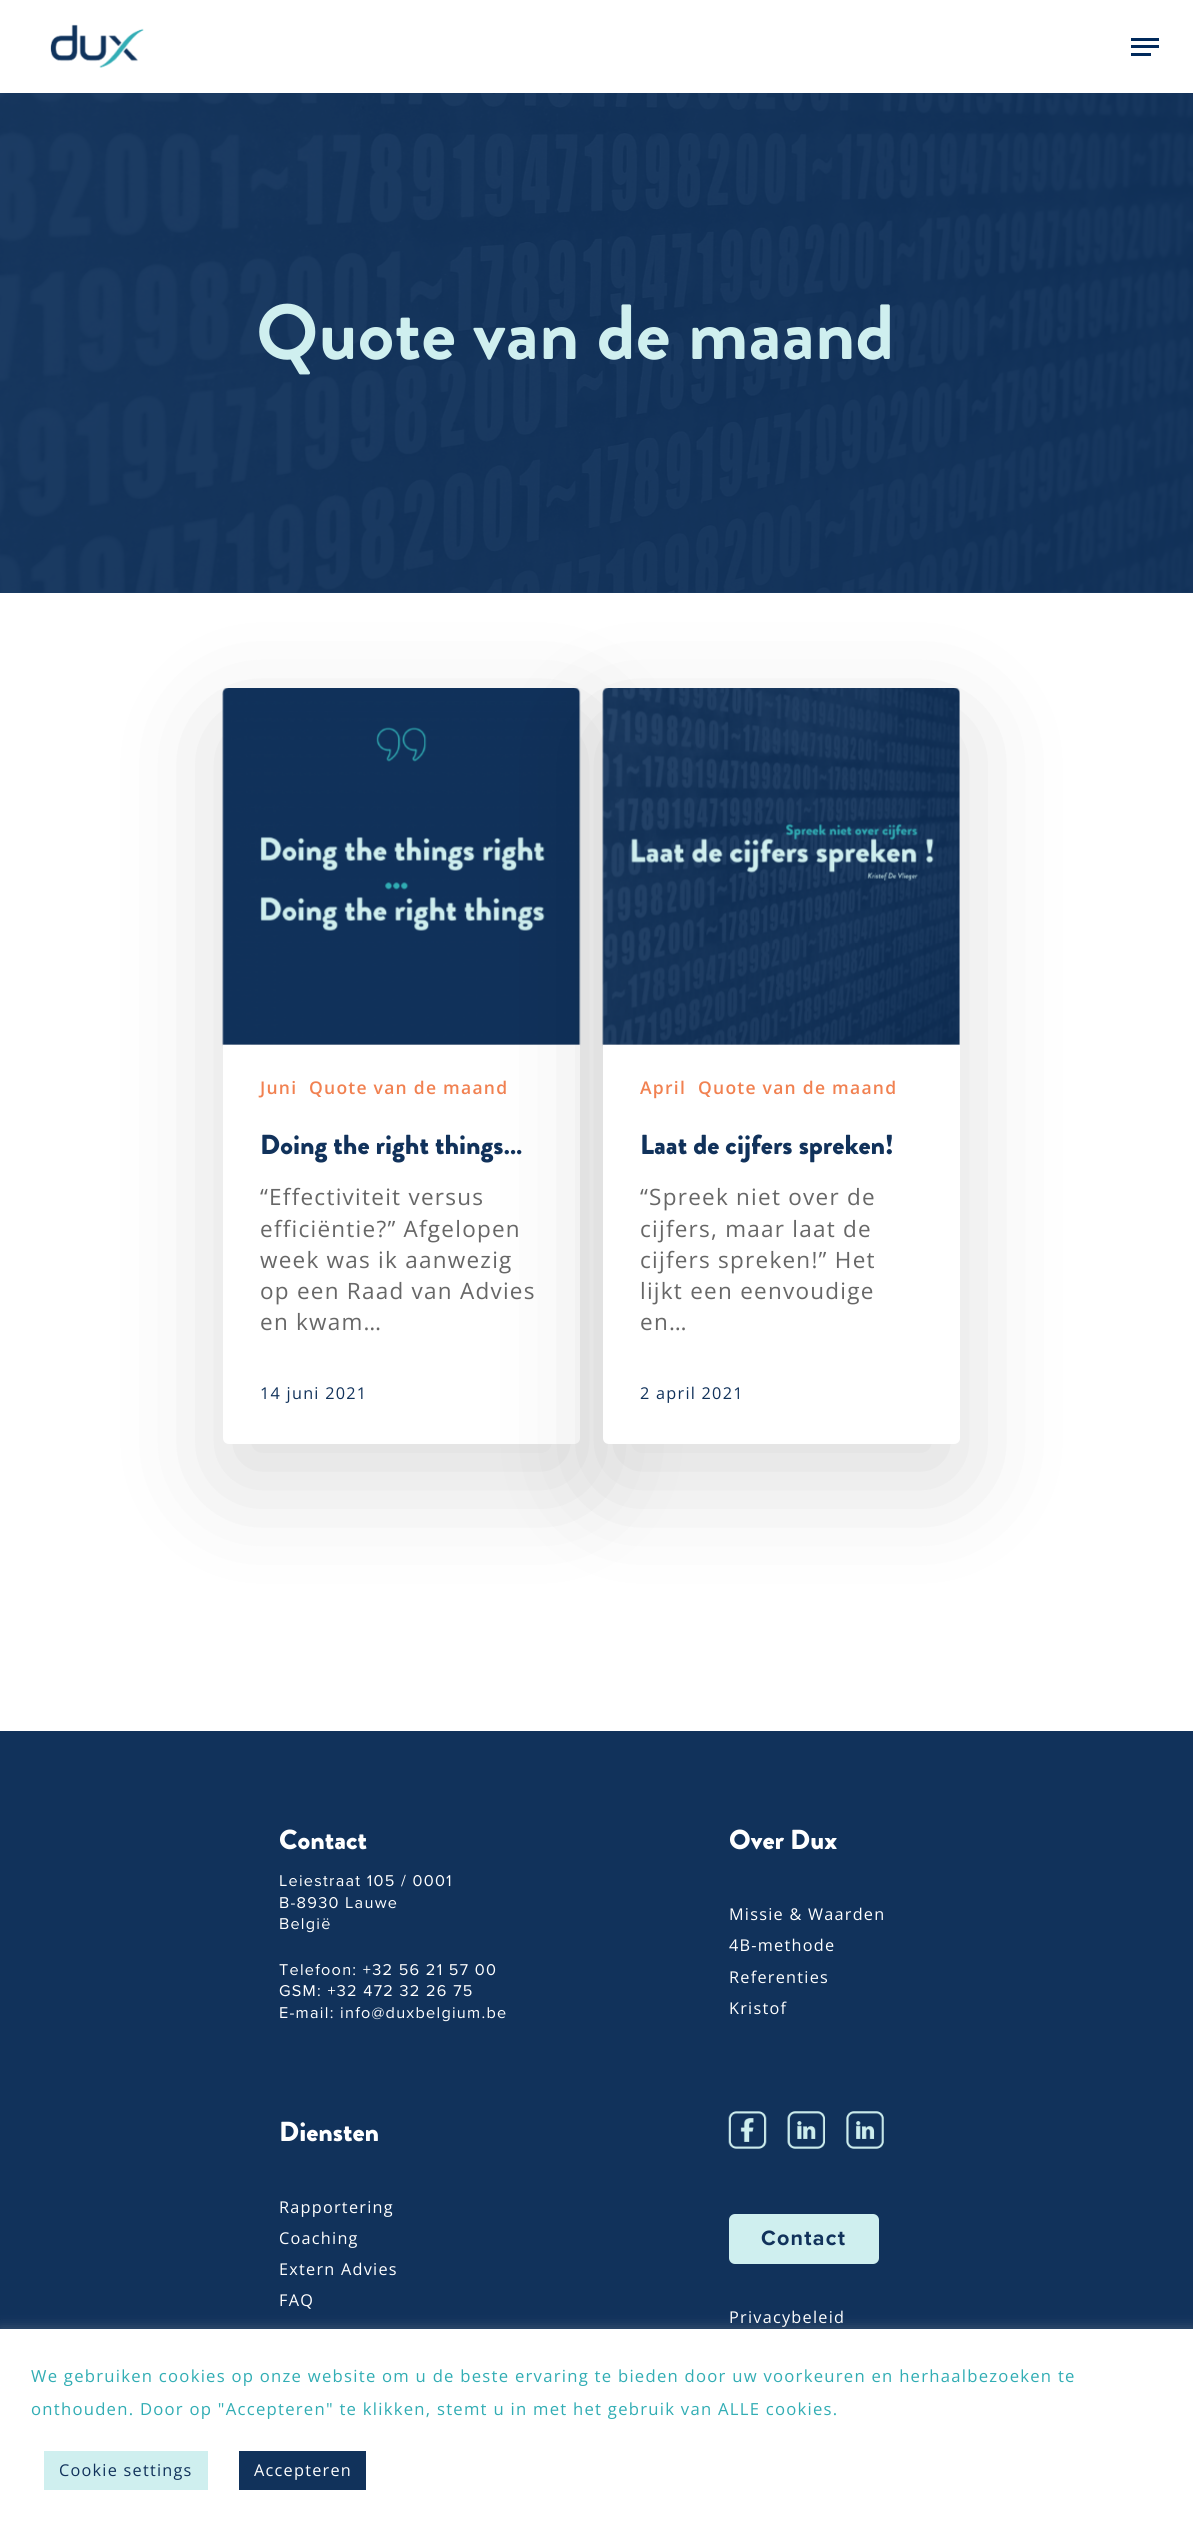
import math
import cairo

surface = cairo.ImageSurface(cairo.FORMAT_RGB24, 1193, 2533)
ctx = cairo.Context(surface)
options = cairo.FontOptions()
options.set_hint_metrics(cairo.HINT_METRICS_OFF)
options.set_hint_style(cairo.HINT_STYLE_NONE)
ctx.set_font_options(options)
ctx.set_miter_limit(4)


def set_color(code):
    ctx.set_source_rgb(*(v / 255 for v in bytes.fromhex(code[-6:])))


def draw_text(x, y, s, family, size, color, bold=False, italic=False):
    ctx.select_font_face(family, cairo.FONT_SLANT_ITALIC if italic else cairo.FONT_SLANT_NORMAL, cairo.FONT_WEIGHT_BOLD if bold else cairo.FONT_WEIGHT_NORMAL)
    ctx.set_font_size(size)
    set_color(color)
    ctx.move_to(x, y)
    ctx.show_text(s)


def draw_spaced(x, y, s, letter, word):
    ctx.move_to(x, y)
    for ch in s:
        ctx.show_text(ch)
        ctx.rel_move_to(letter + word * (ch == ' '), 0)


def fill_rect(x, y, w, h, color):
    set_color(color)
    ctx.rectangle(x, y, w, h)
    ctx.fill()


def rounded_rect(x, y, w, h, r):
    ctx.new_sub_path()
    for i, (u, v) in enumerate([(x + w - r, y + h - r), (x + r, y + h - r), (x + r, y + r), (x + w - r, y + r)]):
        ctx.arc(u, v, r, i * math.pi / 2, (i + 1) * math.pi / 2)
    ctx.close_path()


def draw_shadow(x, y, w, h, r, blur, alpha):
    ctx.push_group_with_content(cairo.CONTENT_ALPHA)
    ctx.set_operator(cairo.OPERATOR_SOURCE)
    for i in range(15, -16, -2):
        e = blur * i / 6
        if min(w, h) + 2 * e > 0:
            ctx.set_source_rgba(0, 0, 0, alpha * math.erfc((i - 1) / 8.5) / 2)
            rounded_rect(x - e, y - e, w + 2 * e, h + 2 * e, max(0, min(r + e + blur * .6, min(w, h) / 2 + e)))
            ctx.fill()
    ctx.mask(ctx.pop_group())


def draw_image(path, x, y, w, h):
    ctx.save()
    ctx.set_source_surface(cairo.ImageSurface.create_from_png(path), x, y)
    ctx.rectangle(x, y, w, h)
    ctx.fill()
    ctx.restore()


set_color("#ffffff")
ctx.paint()
draw_image("assets/img1.png", 50, 24, 94, 44)
fill_rect(1131, 38, 28, 3, "#00295b")
fill_rect(1131, 53, 20, 3, "#00295b")
fill_rect(1131, 45, 28, 3, "#00295b")
fill_rect(0, 592, 1193, 1, "#1b3a61")
draw_image("assets/img2.png", 0, 93, 1193, 500)
draw_text(256, 359, "Quote van de maand", "Brandon Grotesque", 78, "#cfefef", bold=True)
set_color("#000000")
draw_shadow(223, 725, 357, 756, 6, 56, 0.14)
draw_image("assets/img3.png", 222, 688, 359, 358)
fill_rect(223, 1045, 357, 66, "#ffffff")
ctx.select_font_face("Open Sans SemiBold")
ctx.set_font_size(17.5)
set_color("#f18151")
draw_spaced(260, 1094, "Juni", 1.25, 0)
draw_spaced(309, 1094, "Quote van de maand", 1.25, 0)
set_color("#ffffff")
ctx.new_path()
ctx.move_to(223, 1111)
ctx.line_to(580, 1111)
ctx.line_to(580, 1438)
ctx.curve_to(580, 1441.5, 577.5, 1444, 574, 1444)
ctx.line_to(229, 1444)
ctx.curve_to(225.5, 1444, 223, 1441.5, 223, 1438)
ctx.close_path()
ctx.fill()
draw_text(260, 1154, "Doing the right things…", "Brandon Grotesque Black", 27.5, "#11325b")
ctx.select_font_face("Open Sans")
ctx.set_font_size(22.5)
set_color("#676767")
draw_spaced(260, 1205, "“Effectiviteit versus", 1.25, 0)
draw_spaced(260, 1237, "efficiëntie?” Afgelopen", 1.25, 0)
draw_spaced(260, 1268, "week was ik aanwezig", 1.25, 0)
draw_spaced(260, 1299, "op een Raad van Advies", 1.25, 0)
draw_spaced(260, 1330, "en kwam…", 1.25, 0)
ctx.set_font_size(16.25)
set_color("#11325b")
draw_spaced(260, 1399, "14 juni 2021", 1.25, 0)
set_color("#000000")
draw_shadow(603, 725, 357, 756, 6, 56, 0.14)
draw_image("assets/img4.png", 602, 688, 358, 358)
fill_rect(603, 1045, 357, 66, "#ffffff")
ctx.select_font_face("Open Sans SemiBold")
ctx.set_font_size(17.5)
set_color("#f18151")
draw_spaced(640, 1094, "April", 1.25, 0)
draw_spaced(698, 1094, "Quote van de maand", 1.25, 0)
set_color("#ffffff")
ctx.new_path()
ctx.move_to(603, 1111)
ctx.line_to(960, 1111)
ctx.line_to(960, 1438)
ctx.curve_to(960, 1441.5, 957.5, 1444, 954, 1444)
ctx.line_to(609, 1444)
ctx.curve_to(605.5, 1444, 603, 1441.5, 603, 1438)
ctx.close_path()
ctx.fill()
draw_text(640, 1154, "Laat de cijfers spreken!", "Brandon Grotesque Black", 27.5, "#11325b")
ctx.select_font_face("Open Sans")
ctx.set_font_size(22.5)
set_color("#676767")
draw_spaced(640, 1205, "“Spreek niet over de", 1.25, 0)
draw_spaced(640, 1237, "cijfers, maar laat de", 1.25, 0)
draw_spaced(640, 1268, "cijfers spreken!” Het", 1.25, 0)
draw_spaced(640, 1299, "lijkt een eenvoudige", 1.25, 0)
draw_spaced(640, 1330, "en…", 1.25, 0)
ctx.set_font_size(16.25)
set_color("#11325b")
draw_spaced(640, 1399, "2 april 2021", 1.25, 0)
fill_rect(0, 1731, 1193, 598, "#11325b")
draw_text(279, 1849, "Contact", "Brandon Grotesque Black", 27.5, "#ffffff")
ctx.select_font_face("Proxima Nova")
ctx.set_font_size(16.25)
draw_spaced(279, 1886, "Leiestraat 105 / 0001", 1.25, 0)
draw_spaced(279, 1908, "B-8930 Lauwe", 1.25, 0)
draw_spaced(279, 1929, "België", 1.25, 0)
draw_spaced(279, 1975, "Telefoon: +32 56 21 57 00", 1.25, 0)
draw_spaced(279, 1996, "GSM: +32 472 32 26 75", 1.25, 0)
draw_spaced(279, 2018, "E-mail: info@duxbelgium.be", 1.25, 0)
draw_text(729, 1849, "Over Dux", "Brandon Grotesque Black", 27.5, "#ffffff")
ctx.select_font_face("Open Sans")
ctx.set_font_size(16.25)
draw_spaced(729, 1920, "Missie & Waarden", 1.25, 0)
draw_spaced(729, 1951, "4B-methode", 1.25, 0)
draw_spaced(729, 1983, "Referenties", 1.25, 0)
draw_spaced(729, 2014, "Kristof", 1.25, 0)
draw_text(279, 2141, "Diensten", "Brandon Grotesque Black", 27.5, "#ffffff")
ctx.select_font_face("Open Sans")
ctx.set_font_size(16.25)
draw_spaced(279, 2213, "Rapportering", 1.25, 0)
draw_spaced(279, 2244, "Coaching", 1.25, 0)
draw_spaced(279, 2275, "Extern Advies", 1.25, 0)
draw_spaced(279, 2306, "FAQ", 1.25, 0)
draw_image("assets/img5.png", 728, 2111, 39, 38)
draw_image("assets/img6.png", 787, 2111, 38, 38)
draw_image("assets/img7.png", 846, 2111, 38, 38)
set_color("#cfefef")
rounded_rect(729, 2214, 150, 50, 6)
ctx.fill()
ctx.select_font_face("Proxima Nova", cairo.FONT_SLANT_NORMAL, cairo.FONT_WEIGHT_BOLD)
ctx.set_font_size(21.5)
set_color("#11325b")
draw_spaced(761, 2245, "Contact", 1.25, 0)
ctx.select_font_face("Open Sans")
ctx.set_font_size(16.25)
set_color("#ffffff")
draw_spaced(729, 2323, "Privacybeleid", 1.25, 0)
set_color("#acabab")
draw_shadow(0, 2328, 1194, 205, 0, 6, 0.3)
fill_rect(0, 2329, 1193, 204, "#ffffff")
ctx.set_font_size(16.67)
set_color("#31adb4")
draw_spaced(31, 2382, "We gebruiken cookies op onze website om u de beste ervaring te bieden door uw voorkeuren en herhaalbezoeken te", 1.25, 0)
draw_spaced(31, 2415, "onthouden. Door op \"Accepteren\" te klikken, stemt u in met het gebruik van ALLE cookies.", 1.25, 0)
fill_rect(44, 2451, 164, 39, "#cfefef")
ctx.set_font_size(16.25)
set_color("#11325b")
draw_spaced(59, 2476, "Cookie settings", 1.25, 0)
fill_rect(239, 2451, 127, 39, "#11325b")
set_color("#ffffff")
draw_spaced(254, 2476, "Accepteren", 1.25, 0)
surface.write_to_png("output.png")
